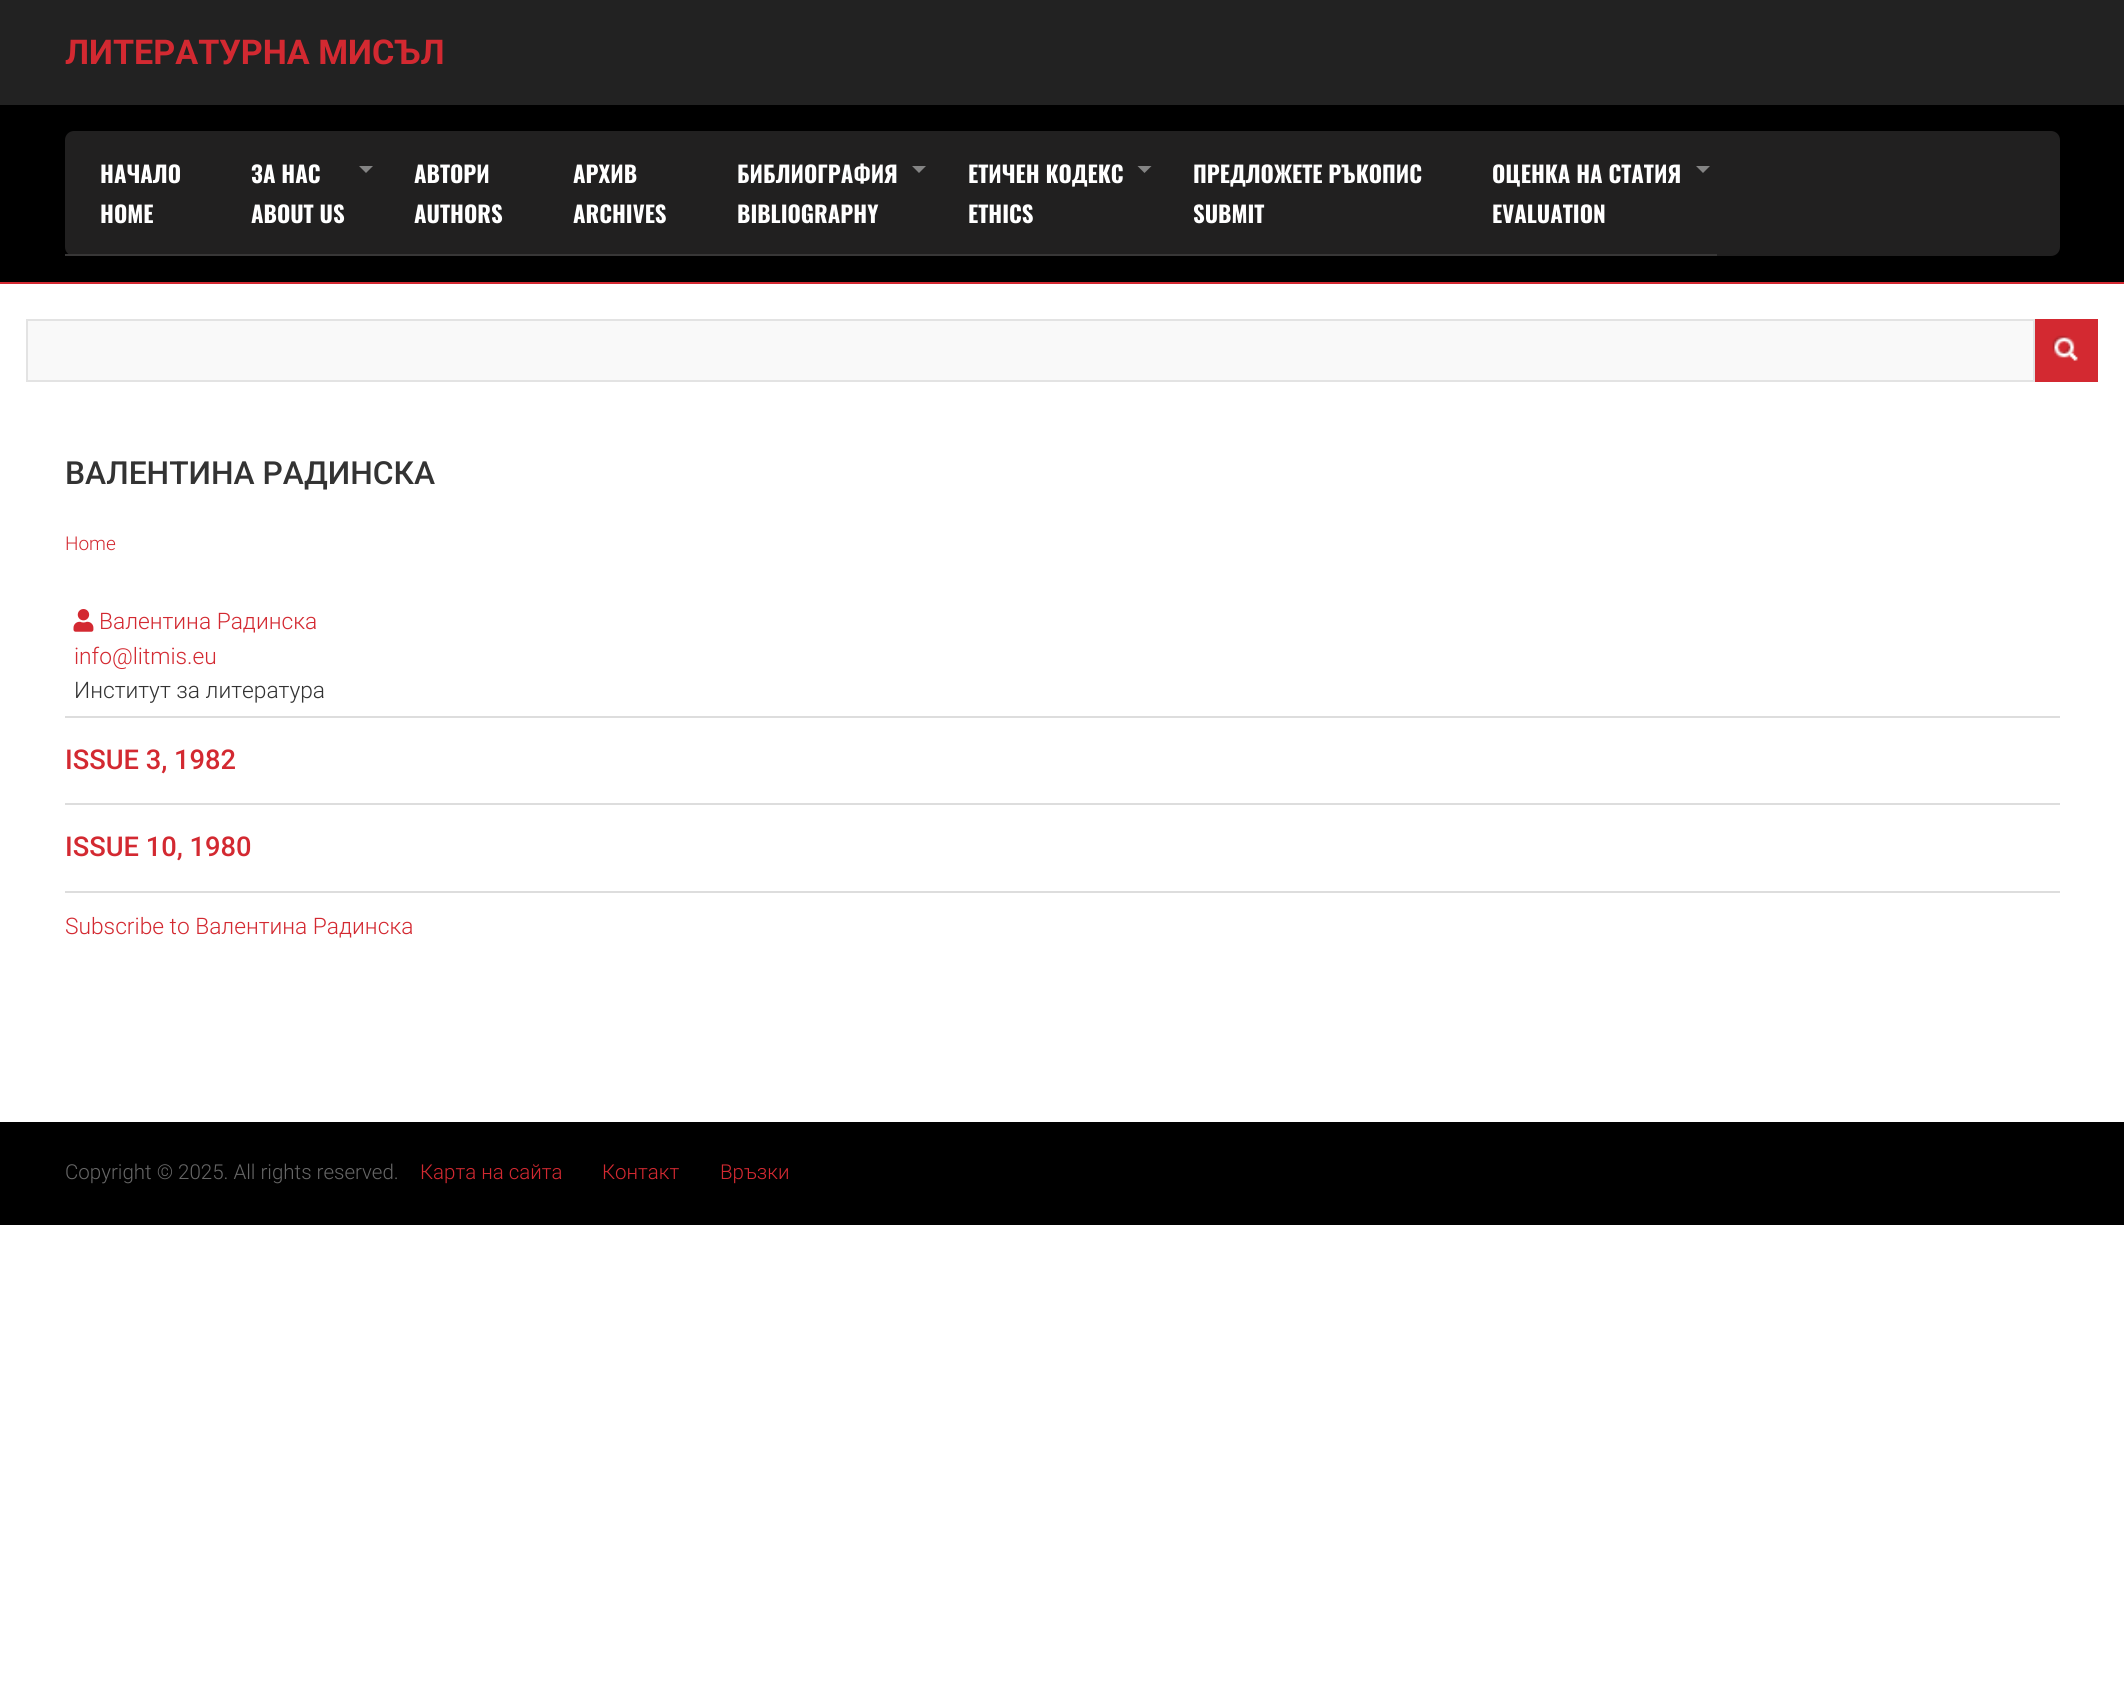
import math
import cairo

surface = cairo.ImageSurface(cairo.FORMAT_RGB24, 2124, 1707)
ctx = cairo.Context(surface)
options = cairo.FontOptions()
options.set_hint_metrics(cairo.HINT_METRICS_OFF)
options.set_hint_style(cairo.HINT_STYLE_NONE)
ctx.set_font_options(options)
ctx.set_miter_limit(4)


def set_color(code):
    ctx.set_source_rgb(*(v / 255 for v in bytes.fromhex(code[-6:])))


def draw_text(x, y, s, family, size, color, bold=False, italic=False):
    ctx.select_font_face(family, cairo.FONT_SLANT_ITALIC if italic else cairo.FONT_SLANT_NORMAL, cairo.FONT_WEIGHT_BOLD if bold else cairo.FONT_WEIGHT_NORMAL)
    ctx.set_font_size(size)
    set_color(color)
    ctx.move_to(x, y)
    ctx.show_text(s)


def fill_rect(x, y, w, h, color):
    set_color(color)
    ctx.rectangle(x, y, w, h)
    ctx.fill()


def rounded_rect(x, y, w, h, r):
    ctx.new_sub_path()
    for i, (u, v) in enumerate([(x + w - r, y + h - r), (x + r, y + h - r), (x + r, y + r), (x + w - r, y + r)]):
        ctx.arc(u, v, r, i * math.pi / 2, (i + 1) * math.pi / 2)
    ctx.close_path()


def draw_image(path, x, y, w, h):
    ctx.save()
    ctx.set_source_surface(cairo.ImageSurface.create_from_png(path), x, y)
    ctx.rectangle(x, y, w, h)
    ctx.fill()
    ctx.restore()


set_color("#ffffff")
ctx.paint()
fill_rect(0, 0, 2124, 105, "#222222")
draw_text(65, 64, "ЛИТЕРАТУРНА МИСЪЛ", "Roboto", 34.1, "#d32931", bold=True)
fill_rect(0, 105, 2124, 177, "#000000")
fill_rect(0, 282, 2124, 2, "#d32931")
set_color("#212020")
rounded_rect(65, 131, 1995, 125, 9)
ctx.fill()
fill_rect(65, 254, 1652, 2, "#383737")
draw_text(100, 183, "НАЧАЛО", "Oswald", 22.75, "#ffffff", bold=True)
draw_text(100, 223, "HOME", "Oswald", 22.75, "#ffffff", bold=True)
draw_text(251, 183, "ЗА НАС", "Oswald", 22.75, "#ffffff", bold=True)
set_color("#848484")
ctx.new_path()
ctx.move_to(359, 166)
ctx.line_to(373, 166)
ctx.line_to(366, 173)
ctx.close_path()
ctx.fill()
draw_text(251, 223, "ABOUT US", "Oswald", 22.75, "#ffffff", bold=True)
draw_text(414, 183, "АВТОРИ", "Oswald", 22.75, "#ffffff", bold=True)
draw_text(414, 223, "AUTHORS", "Oswald", 22.75, "#ffffff", bold=True)
draw_text(573, 183, "АРХИВ", "Oswald", 22.75, "#ffffff", bold=True)
draw_text(573, 223, "ARCHIVES", "Oswald", 22.75, "#ffffff", bold=True)
draw_text(737, 183, "БИБЛИОГРАФИЯ", "Oswald", 22.75, "#ffffff", bold=True)
set_color("#848484")
ctx.new_path()
ctx.move_to(912, 166)
ctx.line_to(926, 166)
ctx.line_to(919, 173)
ctx.close_path()
ctx.fill()
draw_text(737, 223, "BIBLIOGRAPHY", "Oswald", 22.75, "#ffffff", bold=True)
draw_text(968, 183, "ЕТИЧЕН КОДЕКС", "Oswald", 22.75, "#ffffff", bold=True)
set_color("#848484")
ctx.new_path()
ctx.move_to(1137.5, 166)
ctx.line_to(1151.5, 166)
ctx.line_to(1144.5, 173)
ctx.close_path()
ctx.fill()
draw_text(968, 223, "ETHICS", "Oswald", 22.75, "#ffffff", bold=True)
draw_text(1193, 183, "ПРЕДЛОЖЕТЕ РЪКОПИС", "Oswald", 22.75, "#ffffff", bold=True)
draw_text(1193, 223, "SUBMIT", "Oswald", 22.75, "#ffffff", bold=True)
draw_text(1492, 183, "ОЦЕНКА НА СТАТИЯ", "Oswald", 22.75, "#ffffff", bold=True)
set_color("#848484")
ctx.new_path()
ctx.move_to(1696, 166)
ctx.line_to(1710, 166)
ctx.line_to(1703, 173)
ctx.close_path()
ctx.fill()
draw_text(1492, 223, "EVALUATION", "Oswald", 22.75, "#ffffff", bold=True)
set_color("#f9f9f9")
ctx.rectangle(27, 320, 2007, 61)
ctx.fill_preserve()
set_color("#e3e3e3")
ctx.stroke()
fill_rect(2035, 319, 63, 63, "#d32931")
draw_image("assets/img1.png", 2052, 335, 26, 26)
draw_text(65, 484, "ВАЛЕНТИНА РАДИНСКА", "Roboto Medium", 31.8, "#333333")
draw_text(65, 550, "Home", "Roboto Light", 19, "#d32931")
fill_rect(65, 716, 1995, 2, "#dddddd")
draw_image("assets/img2.png", 73, 609, 21, 23)
draw_text(99, 629, "Валентина Радинска", "Roboto Light", 22.75, "#d32931")
draw_text(74, 664, "info@litmis.eu", "Roboto Light", 22.75, "#d32931")
draw_text(74, 698, "Институт за литература", "Roboto Light", 22.75, "#333333")
fill_rect(65, 803, 1995, 2, "#dddddd")
draw_text(65, 769, "ISSUE 3, 1982", "Roboto Medium", 27.25, "#d32931")
fill_rect(65, 891, 1995, 2, "#dddddd")
draw_text(65, 856, "ISSUE 10, 1980", "Roboto Medium", 27.25, "#d32931")
draw_text(65, 934, "Subscribe to Валентина Радинска", "Roboto Light", 22.75, "#d32931")
fill_rect(0, 1122, 2124, 103, "#000000")
draw_text(65, 1179, "Copyright © 2025. All rights reserved.", "Roboto Light", 20.5, "#666666")
draw_text(420, 1179, "Карта на сайта", "Roboto Light", 20.5, "#d32931")
draw_text(602, 1179, "Контакт", "Roboto Light", 20.5, "#d32931")
draw_text(720, 1179, "Връзки", "Roboto Light", 20.5, "#d32931")
surface.write_to_png("output.png")
